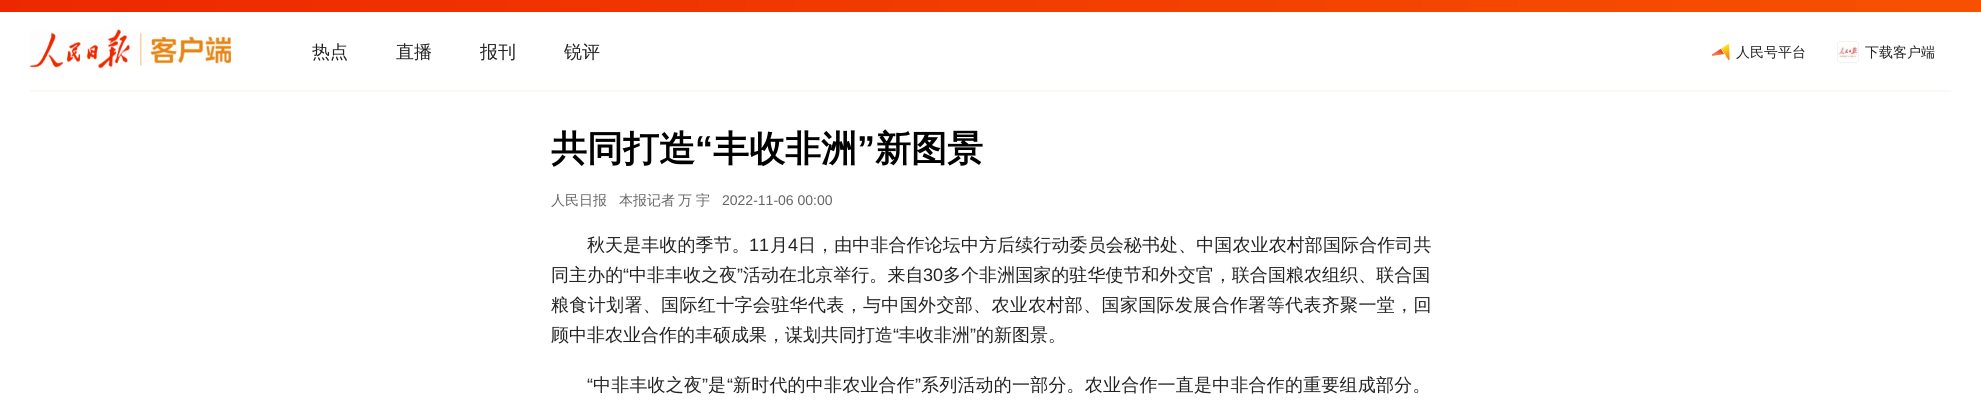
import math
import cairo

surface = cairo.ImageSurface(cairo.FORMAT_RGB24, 1981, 404)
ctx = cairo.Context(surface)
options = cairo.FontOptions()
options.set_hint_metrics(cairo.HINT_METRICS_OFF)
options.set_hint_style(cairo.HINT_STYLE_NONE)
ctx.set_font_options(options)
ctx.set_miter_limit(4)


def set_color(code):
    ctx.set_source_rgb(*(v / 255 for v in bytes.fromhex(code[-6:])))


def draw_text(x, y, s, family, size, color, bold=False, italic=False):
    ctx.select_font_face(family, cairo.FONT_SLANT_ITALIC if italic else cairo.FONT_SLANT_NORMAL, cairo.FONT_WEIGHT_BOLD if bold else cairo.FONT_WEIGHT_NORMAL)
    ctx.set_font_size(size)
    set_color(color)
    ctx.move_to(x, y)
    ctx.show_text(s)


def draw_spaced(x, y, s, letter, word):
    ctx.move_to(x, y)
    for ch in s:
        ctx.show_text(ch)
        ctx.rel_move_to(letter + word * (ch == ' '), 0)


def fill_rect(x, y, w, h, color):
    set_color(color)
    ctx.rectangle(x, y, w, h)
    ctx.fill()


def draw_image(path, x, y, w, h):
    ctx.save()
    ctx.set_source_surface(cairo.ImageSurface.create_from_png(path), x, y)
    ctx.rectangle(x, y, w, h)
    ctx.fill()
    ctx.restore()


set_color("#ffffff")
ctx.paint()
gradient = cairo.LinearGradient(1981, 6, 0, 6)
gradient.add_color_stop_rgba(0, 0.969, 0.318, 0, 1)
gradient.add_color_stop_rgba(1, 0.929, 0.157, 0, 1)
ctx.set_source(gradient)
ctx.rectangle(0, 0, 1981, 12)
ctx.fill()
draw_image("assets/img1.png", 30, 29, 201, 40)
draw_text(312, 58, "热点", "WenQuanYi Zen Hei Medium", 18, "#222222")
draw_text(396, 58, "直播", "WenQuanYi Zen Hei Medium", 18, "#222222")
draw_text(480, 58, "报刊", "WenQuanYi Zen Hei Medium", 18, "#222222")
draw_text(564, 58, "锐评", "WenQuanYi Zen Hei Medium", 18, "#222222")
draw_image("assets/img2.png", 1712, 44, 18, 16)
draw_text(1736, 57, "人民号平台", "WenQuanYi Zen Hei Medium", 14, "#222222")
draw_image("assets/img3.png", 1837, 41, 22, 22)
draw_text(1865, 57, "下载客户端", "WenQuanYi Zen Hei Medium", 14, "#222222")
fill_rect(30, 90, 1921, 2, "#fbf9f4")
draw_text(551, 161, "共同打造", "WenQuanYi Zen Hei", 36, "#000000", bold=True)
draw_text(695, 161, "“", "Liberation Sans", 36, "#000000", bold=True)
draw_text(713, 161, "丰收非洲", "WenQuanYi Zen Hei", 36, "#000000", bold=True)
draw_text(857, 161, "”", "Liberation Sans", 36, "#000000", bold=True)
draw_text(875, 161, "新图景", "WenQuanYi Zen Hei", 36, "#000000", bold=True)
draw_text(551, 205, "人民日报", "WenQuanYi Zen Hei Medium", 14, "#666666")
draw_text(619, 205, "本报记者", "WenQuanYi Zen Hei Medium", 14, "#666666")
draw_text(678, 205, "万", "WenQuanYi Zen Hei Medium", 14, "#666666")
draw_text(696, 205, "宇", "WenQuanYi Zen Hei Medium", 14, "#666666")
draw_text(722, 205, "2022-11-06 00:00", "Liberation Sans", 14, "#666666")
ctx.select_font_face("WenQuanYi Zen Hei Medium")
ctx.set_font_size(18)
set_color("#222222")
draw_spaced(587, 251, "秋天是丰收的季节。", 0.1, 0)
ctx.select_font_face("Liberation Sans")
draw_spaced(749, 251, "11", 0.1, 0)
ctx.select_font_face("WenQuanYi Zen Hei Medium")
draw_spaced(770, 251, "月", 0.1, 0)
ctx.select_font_face("Liberation Sans")
draw_spaced(788, 251, "4", 0.1, 0)
ctx.select_font_face("WenQuanYi Zen Hei Medium")
draw_spaced(798, 251, "日，由中非合作论坛中方后续行动委员会秘书处、中国农业农村部国际合作司共", 0.1, 0)
draw_spaced(551, 281, "同主办的", 0.05, 0)
ctx.select_font_face("Liberation Sans")
draw_spaced(623, 281, "“", 0.05, 0)
ctx.select_font_face("WenQuanYi Zen Hei Medium")
draw_spaced(629, 281, "中非丰收之夜", 0.05, 0)
ctx.select_font_face("Liberation Sans")
draw_spaced(737, 281, "”", 0.05, 0)
ctx.select_font_face("WenQuanYi Zen Hei Medium")
draw_spaced(743, 281, "活动在北京举行。来自", 0.05, 0)
ctx.select_font_face("Liberation Sans")
draw_spaced(923, 281, "30", 0.05, 0)
ctx.select_font_face("WenQuanYi Zen Hei Medium")
draw_spaced(943, 281, "多个非洲国家的驻华使节和外交官，联合国粮农组织、联合国", 0.05, 0)
draw_spaced(551, 311, "粮食计划署、国际红十字会驻华代表，与中国外交部、农业农村部、国家国际发展合作署等代表齐聚一堂，回", 0.35, 0)
draw_text(551, 341, "顾中非农业合作的丰硕成果，谋划共同打造", "WenQuanYi Zen Hei Medium", 18, "#222222")
draw_text(893, 341, "“", "Liberation Sans", 18, "#222222")
draw_text(898, 341, "丰收非洲", "WenQuanYi Zen Hei Medium", 18, "#222222")
draw_text(970, 341, "”", "Liberation Sans", 18, "#222222")
draw_text(976, 341, "的新图景。", "WenQuanYi Zen Hei Medium", 18, "#222222")
ctx.select_font_face("Liberation Sans")
draw_spaced(587, 391, "“", 0.2, 0)
ctx.select_font_face("WenQuanYi Zen Hei Medium")
draw_spaced(593, 391, "中非丰收之夜", 0.2, 0)
ctx.select_font_face("Liberation Sans")
draw_spaced(702, 391, "”", 0.2, 0)
ctx.select_font_face("WenQuanYi Zen Hei Medium")
draw_spaced(708, 391, "是", 0.2, 0)
ctx.select_font_face("Liberation Sans")
draw_spaced(727, 391, "“", 0.2, 0)
ctx.select_font_face("WenQuanYi Zen Hei Medium")
draw_spaced(733, 391, "新时代的中非农业合作", 0.2, 0)
ctx.select_font_face("Liberation Sans")
draw_spaced(915, 391, "”", 0.2, 0)
ctx.select_font_face("WenQuanYi Zen Hei Medium")
draw_spaced(921, 391, "系列活动的一部分。农业合作一直是中非合作的重要组成部分。", 0.2, 0)
surface.write_to_png("output.png")
